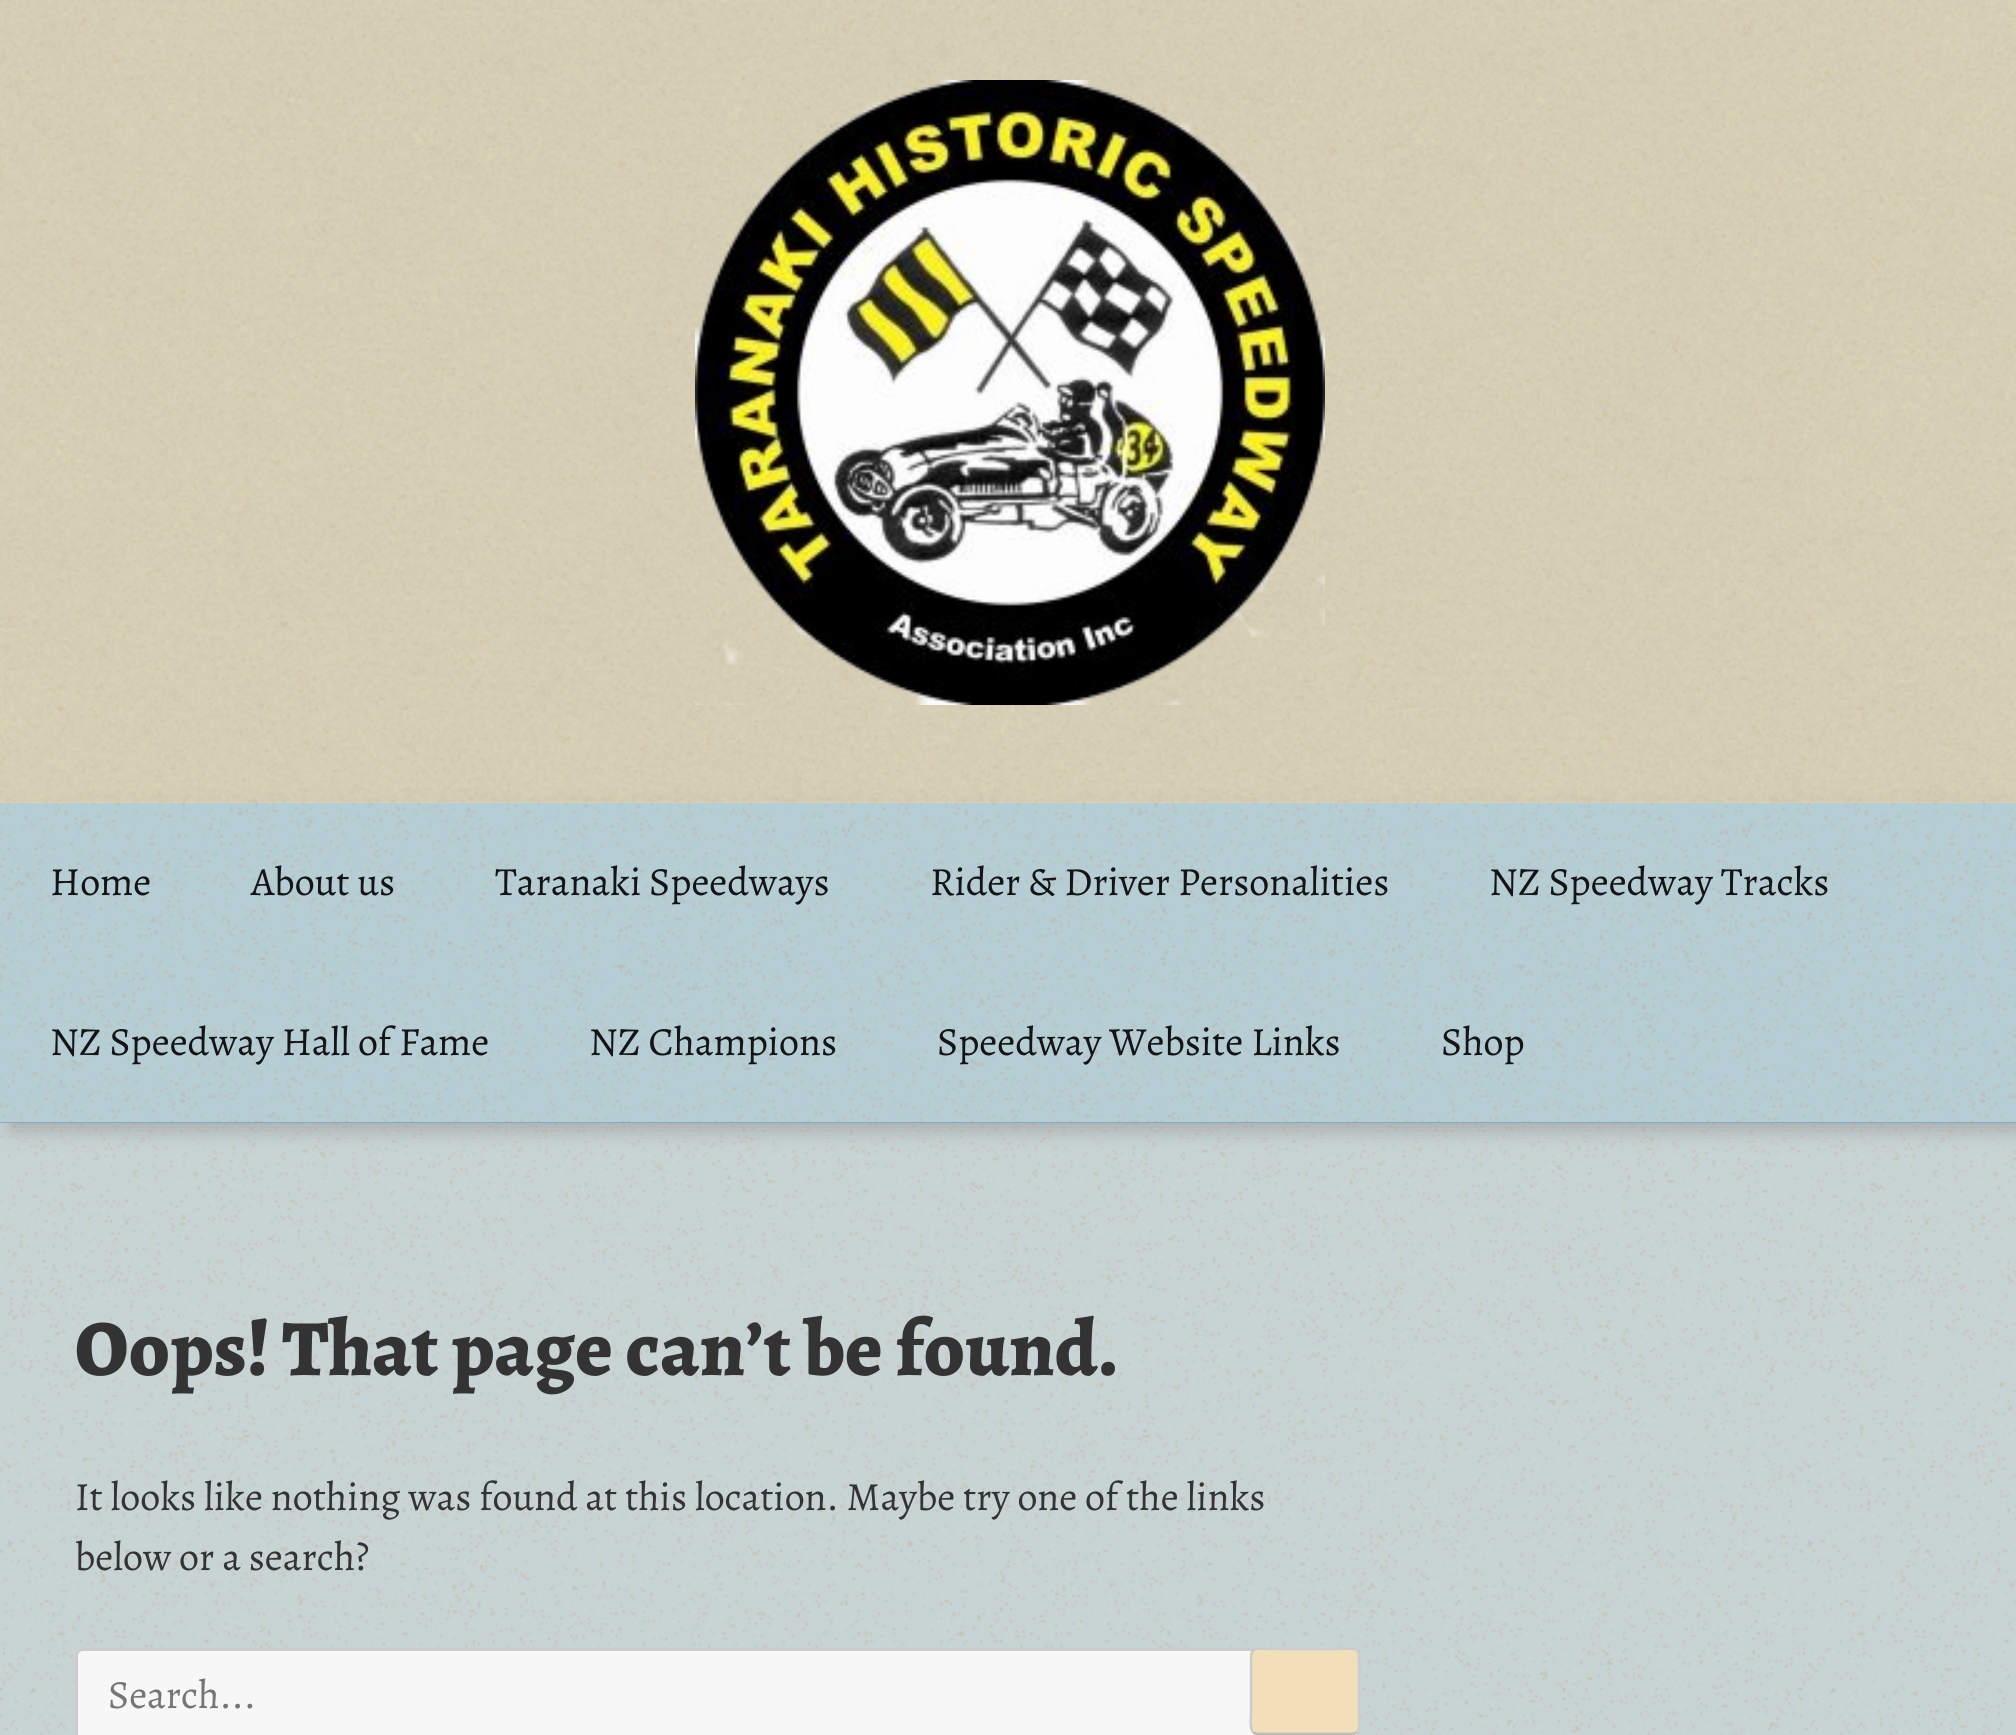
import math
import cairo

surface = cairo.ImageSurface(cairo.FORMAT_RGB24, 2016, 1735)
ctx = cairo.Context(surface)
options = cairo.FontOptions()
options.set_hint_metrics(cairo.HINT_METRICS_OFF)
options.set_hint_style(cairo.HINT_STYLE_NONE)
ctx.set_font_options(options)
ctx.set_miter_limit(4)


def set_color(code):
    ctx.set_source_rgb(*(v / 255 for v in bytes.fromhex(code[-6:])))


def draw_text(x, y, s, family, size, color, bold=False, italic=False):
    ctx.select_font_face(family, cairo.FONT_SLANT_ITALIC if italic else cairo.FONT_SLANT_NORMAL, cairo.FONT_WEIGHT_BOLD if bold else cairo.FONT_WEIGHT_NORMAL)
    ctx.set_font_size(size)
    set_color(color)
    ctx.move_to(x, y)
    ctx.show_text(s)


def fill_rect(x, y, w, h, color):
    set_color(color)
    ctx.rectangle(x, y, w, h)
    ctx.fill()


def rounded_rect(x, y, w, h, r):
    ctx.new_sub_path()
    for i, (u, v) in enumerate([(x + w - r, y + h - r), (x + r, y + h - r), (x + r, y + r), (x + w - r, y + r)]):
        ctx.arc(u, v, r, i * math.pi / 2, (i + 1) * math.pi / 2)
    ctx.close_path()


def draw_shadow(x, y, w, h, r, blur, alpha):
    ctx.push_group_with_content(cairo.CONTENT_ALPHA)
    ctx.set_operator(cairo.OPERATOR_SOURCE)
    for i in range(15, -16, -2):
        e = blur * i / 6
        if min(w, h) + 2 * e > 0:
            ctx.set_source_rgba(0, 0, 0, alpha * math.erfc((i - 1) / 8.5) / 2)
            rounded_rect(x - e, y - e, w + 2 * e, h + 2 * e, max(0, min(r + e + blur * .6, min(w, h) / 2 + e)))
            ctx.fill()
    ctx.mask(ctx.pop_group())


def draw_image(path, x, y, w, h):
    ctx.save()
    ctx.set_source_surface(cairo.ImageSurface.create_from_png(path), x, y)
    ctx.rectangle(x, y, w, h)
    ctx.fill()
    ctx.restore()


set_color("#7c9dbf")
ctx.paint()
draw_image("assets/img1.png", 0, 0, 2016, 1735)
set_color("#999999")
draw_shadow(10, 810, 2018, 320, 0, 11, 0.7)
fill_rect(0, 803, 2016, 320, "#4c89bf")
draw_image("assets/img4.png", 0, 802, 2016, 321)
draw_image("assets/img2.png", 0, 0, 2016, 803)
draw_image("assets/img3.png", 695, 80, 630, 625)
draw_text(50, 895, "Home", "Alegreya", 40, "#121415")
draw_text(251, 895, "About us", "Alegreya", 40, "#121415")
draw_text(495, 895, "Taranaki Speedways", "Alegreya", 40, "#121415")
draw_text(930, 895, "Rider & Driver Personalities", "Alegreya", 40, "#121415")
draw_text(1489, 895, "NZ Speedway Tracks", "Alegreya", 40, "#121415")
draw_text(50, 1055, "NZ Speedway Hall of Fame", "Alegreya", 40, "#121415")
draw_text(589, 1055, "NZ Champions", "Alegreya", 40, "#121415")
draw_text(937, 1055, "Speedway Website Links", "Alegreya", 40, "#121415")
draw_text(1441, 1055, "Shop", "Alegreya", 40, "#121415")
draw_text(75, 1375, "Oops! That page can’t be found.", "Alegreya ExtraBold", 80, "#333333")
draw_text(75, 1510, "It looks like nothing was found at this location. Maybe try one of the links", "Alegreya", 40, "#333333")
draw_text(75, 1570, "below or a search?", "Alegreya", 40, "#333333")
set_color("#f7f7f7")
rounded_rect(76.5, 1649.5, 1282, 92, 6.5)
ctx.fill_preserve()
set_color("#cccccc")
ctx.set_line_width(3)
ctx.stroke()
draw_text(108, 1708, "Search...", "Alegreya", 40, "#757575")
set_color("#f2deb9")
rounded_rect(1250, 1648, 110, 87, 8)
ctx.fill()
ctx.new_path()
ctx.move_to(1357, 1732)
ctx.curve_to(1355.5, 1733, 1354, 1734, 1352.5, 1734)
ctx.line_to(1257.5, 1734)
ctx.curve_to(1256, 1734, 1254.5, 1733, 1253, 1732)
set_color("#bbbbbb")
ctx.set_line_width(2.5)
ctx.stroke()
ctx.new_path()
ctx.move_to(1253, 1732)
ctx.curve_to(1249.5, 1728, 1251, 1718, 1251, 1715.5)
ctx.line_to(1251, 1667)
ctx.curve_to(1251, 1645.5, 1250.5, 1649, 1273.5, 1649)
ctx.line_to(1336.5, 1649)
ctx.curve_to(1359.5, 1649, 1359, 1645.5, 1359, 1667)
ctx.line_to(1359, 1715.5)
ctx.curve_to(1359, 1718, 1360.5, 1728, 1357, 1732)
set_color("#cccccc")
ctx.stroke()
surface.write_to_png("output.png")
